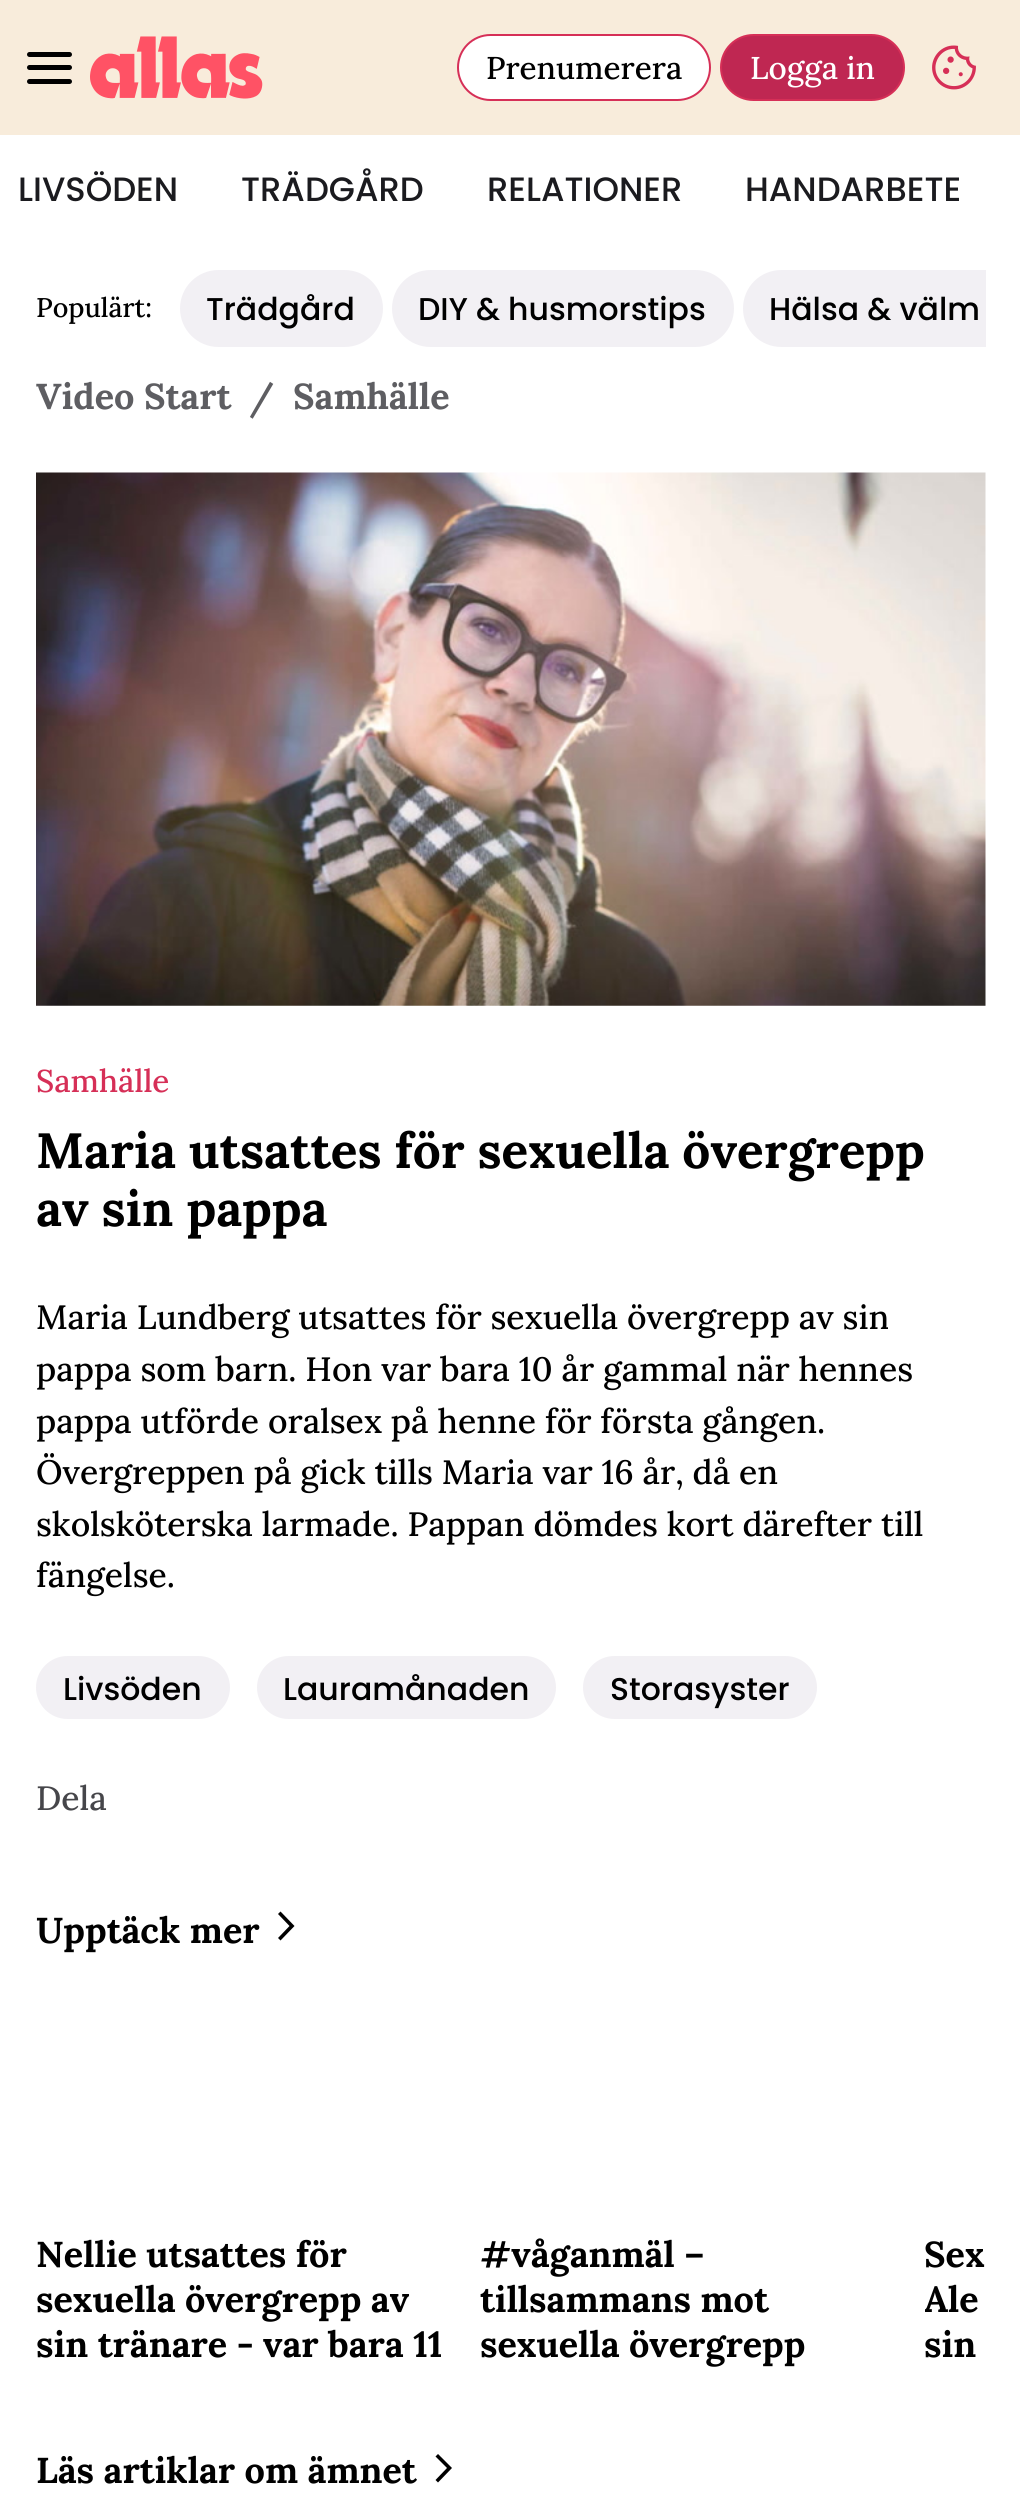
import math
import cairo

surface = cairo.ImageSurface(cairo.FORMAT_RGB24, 1020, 2500)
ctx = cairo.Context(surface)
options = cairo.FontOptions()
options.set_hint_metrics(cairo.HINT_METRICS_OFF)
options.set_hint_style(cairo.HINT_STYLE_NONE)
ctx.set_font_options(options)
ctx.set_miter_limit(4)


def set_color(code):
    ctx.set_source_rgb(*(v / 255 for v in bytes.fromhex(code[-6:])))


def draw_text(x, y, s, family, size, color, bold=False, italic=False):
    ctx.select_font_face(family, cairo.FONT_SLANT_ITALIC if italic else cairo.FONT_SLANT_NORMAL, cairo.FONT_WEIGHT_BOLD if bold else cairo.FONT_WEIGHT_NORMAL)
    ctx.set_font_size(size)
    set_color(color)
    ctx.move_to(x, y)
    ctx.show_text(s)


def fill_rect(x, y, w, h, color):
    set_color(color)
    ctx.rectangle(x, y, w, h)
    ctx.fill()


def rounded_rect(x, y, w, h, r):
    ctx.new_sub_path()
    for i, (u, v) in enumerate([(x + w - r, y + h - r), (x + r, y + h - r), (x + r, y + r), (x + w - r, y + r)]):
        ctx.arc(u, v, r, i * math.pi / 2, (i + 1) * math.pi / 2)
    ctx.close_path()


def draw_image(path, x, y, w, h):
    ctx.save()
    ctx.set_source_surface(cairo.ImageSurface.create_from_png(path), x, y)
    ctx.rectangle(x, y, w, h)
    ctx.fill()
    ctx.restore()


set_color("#ffffff")
ctx.paint()
fill_rect(0, 0, 1020, 135, "#f8ecdb")
set_color("#000000")
rounded_rect(27, 52, 45, 5, 2.5)
ctx.fill()
rounded_rect(27, 65, 45, 5, 2.5)
ctx.fill()
rounded_rect(27, 79, 45, 5, 2.5)
ctx.fill()
draw_image("assets/img1.png", 90, 36, 173, 63)
set_color("#ffffff")
rounded_rect(458, 35, 252, 65, 32.5)
ctx.fill_preserve()
set_color("#d62f57")
ctx.stroke()
draw_text(486, 79, "Prenumerera", "Lora Medium", 31.5, "#000000")
set_color("#bf2752")
rounded_rect(721, 35, 183, 65, 32.5)
ctx.fill_preserve()
set_color("#d62f57")
ctx.stroke()
draw_text(750, 79, "Logga in", "Lora Medium", 31.5, "#ffffff")
draw_image("assets/img2.png", 932, 45, 44, 45)
draw_text(18, 201, "LIVSÖDEN", "Poppins Medium", 33.75, "#1b1b1f")
draw_text(241, 201, "TRÄDGÅRD", "Poppins Medium", 33.75, "#1b1b1f")
draw_text(487, 201, "RELATIONER", "Poppins Medium", 33.75, "#1b1b1f")
draw_text(745, 201, "HANDARBETE", "Poppins Medium", 33.75, "#1b1b1f")
draw_text(36, 317, "Populärt:", "Lora Medium", 27, "#000000")
set_color("#f2f0f4")
rounded_rect(180, 270, 203, 77, 38.5)
ctx.fill()
draw_text(206, 320, "Trädgård", "Poppins Medium", 31.5, "#000000")
set_color("#f2f0f4")
rounded_rect(392, 270, 342, 77, 38.5)
ctx.fill()
draw_text(418, 320, "DIY & husmorstips", "Poppins Medium", 31.5, "#000000")
set_color("#f2f0f4")
ctx.new_path()
ctx.move_to(781.5, 270)
ctx.line_to(986, 270)
ctx.line_to(986, 347)
ctx.line_to(781.5, 347)
ctx.curve_to(760, 347, 743, 330, 743, 308.5)
ctx.curve_to(743, 287, 760, 270, 781.5, 270)
ctx.close_path()
ctx.fill()
draw_text(769, 320, "Hälsa & välm", "Poppins Medium", 31.5, "#000000")
draw_text(36, 409, "Video Start", "Lora", 36, "#5e5e62", bold=True)
draw_text(249, 409, "/", "Lora", 36, "#5e5e62", bold=True)
draw_text(293, 409, "Samhälle", "Lora", 36, "#5e5e62", bold=True)
draw_image("assets/img3.png", 36, 472, 950, 534)
draw_text(36, 1092, "Samhälle", "Lora Medium", 31.5, "#d62f57")
draw_text(36, 1168, "Maria utsattes för sexuella övergrepp", "Lora", 49.5, "#000000", bold=True)
draw_text(36, 1226, "av sin pappa", "Lora", 49.5, "#000000", bold=True)
draw_text(36, 1329, "Maria Lundberg utsattes för sexuella övergrepp av sin", "Lora Medium", 33.75, "#000000")
draw_text(36, 1381, "pappa som barn. Hon var bara 10 år gammal när hennes", "Lora Medium", 33.75, "#000000")
draw_text(36, 1433, "pappa utförde oralsex på henne för första gången.", "Lora Medium", 33.75, "#000000")
draw_text(36, 1484, "Övergreppen på gick tills Maria var 16 år, då en", "Lora Medium", 33.75, "#000000")
draw_text(36, 1536, "skolsköterska larmade. Pappan dömdes kort därefter till", "Lora Medium", 33.75, "#000000")
draw_text(36, 1587, "fängelse.", "Lora Medium", 33.75, "#000000")
set_color("#f2f0f4")
rounded_rect(36, 1656, 194, 63, 31.5)
ctx.fill()
draw_text(63, 1700, "Livsöden", "Poppins Medium", 31.5, "#000000")
set_color("#f2f0f4")
rounded_rect(257, 1656, 299, 63, 31.5)
ctx.fill()
draw_text(283, 1700, "Lauramånaden", "Poppins Medium", 31.5, "#000000")
set_color("#f2f0f4")
rounded_rect(583, 1656, 234, 63, 31.5)
ctx.fill()
draw_text(610, 1700, "Storasyster", "Poppins Medium", 31.5, "#000000")
draw_text(36, 1810, "Dela", "Lora Medium", 33.75, "#46464a")
draw_text(36, 1943, "Upptäck mer", "Lora", 36, "#000000", bold=True)
ctx.new_path()
ctx.move_to(280.5, 1940.5)
ctx.line_to(278, 1938)
ctx.line_to(289.5, 1926)
ctx.line_to(278, 1914)
ctx.line_to(280.5, 1911.5)
ctx.line_to(294.5, 1926)
ctx.close_path()
ctx.fill()
draw_text(36, 2267, "Nellie utsattes för", "Lora", 36, "#000000", bold=True)
draw_text(36, 2312, "sexuella övergrepp av", "Lora", 36, "#000000", bold=True)
draw_text(36, 2357, "sin tränare - var bara 11", "Lora", 36, "#000000", bold=True)
draw_text(480, 2267, "#våganmäl –", "Lora", 36, "#000000", bold=True)
draw_text(480, 2312, "tillsammans mot", "Lora", 36, "#000000", bold=True)
draw_text(480, 2357, "sexuella övergrepp", "Lora", 36, "#000000", bold=True)
draw_text(924, 2267, "Sex", "Lora", 36, "#000000", bold=True)
ctx.save()
ctx.rectangle(925, 2232, 61, 135)
ctx.clip()
draw_text(924, 2312, "Ale", "Lora", 36, "#000000", bold=True)
ctx.restore()
draw_text(924, 2357, "sin", "Lora", 36, "#000000", bold=True)
draw_text(36, 2483, "Läs artiklar om ämnet", "Lora", 36, "#000000", bold=True)
ctx.new_path()
ctx.move_to(438, 2482.5)
ctx.line_to(435.5, 2480)
ctx.line_to(447, 2468)
ctx.line_to(435.5, 2456.5)
ctx.line_to(438, 2454)
ctx.line_to(452, 2468)
ctx.close_path()
ctx.fill()
surface.write_to_png("output.png")
